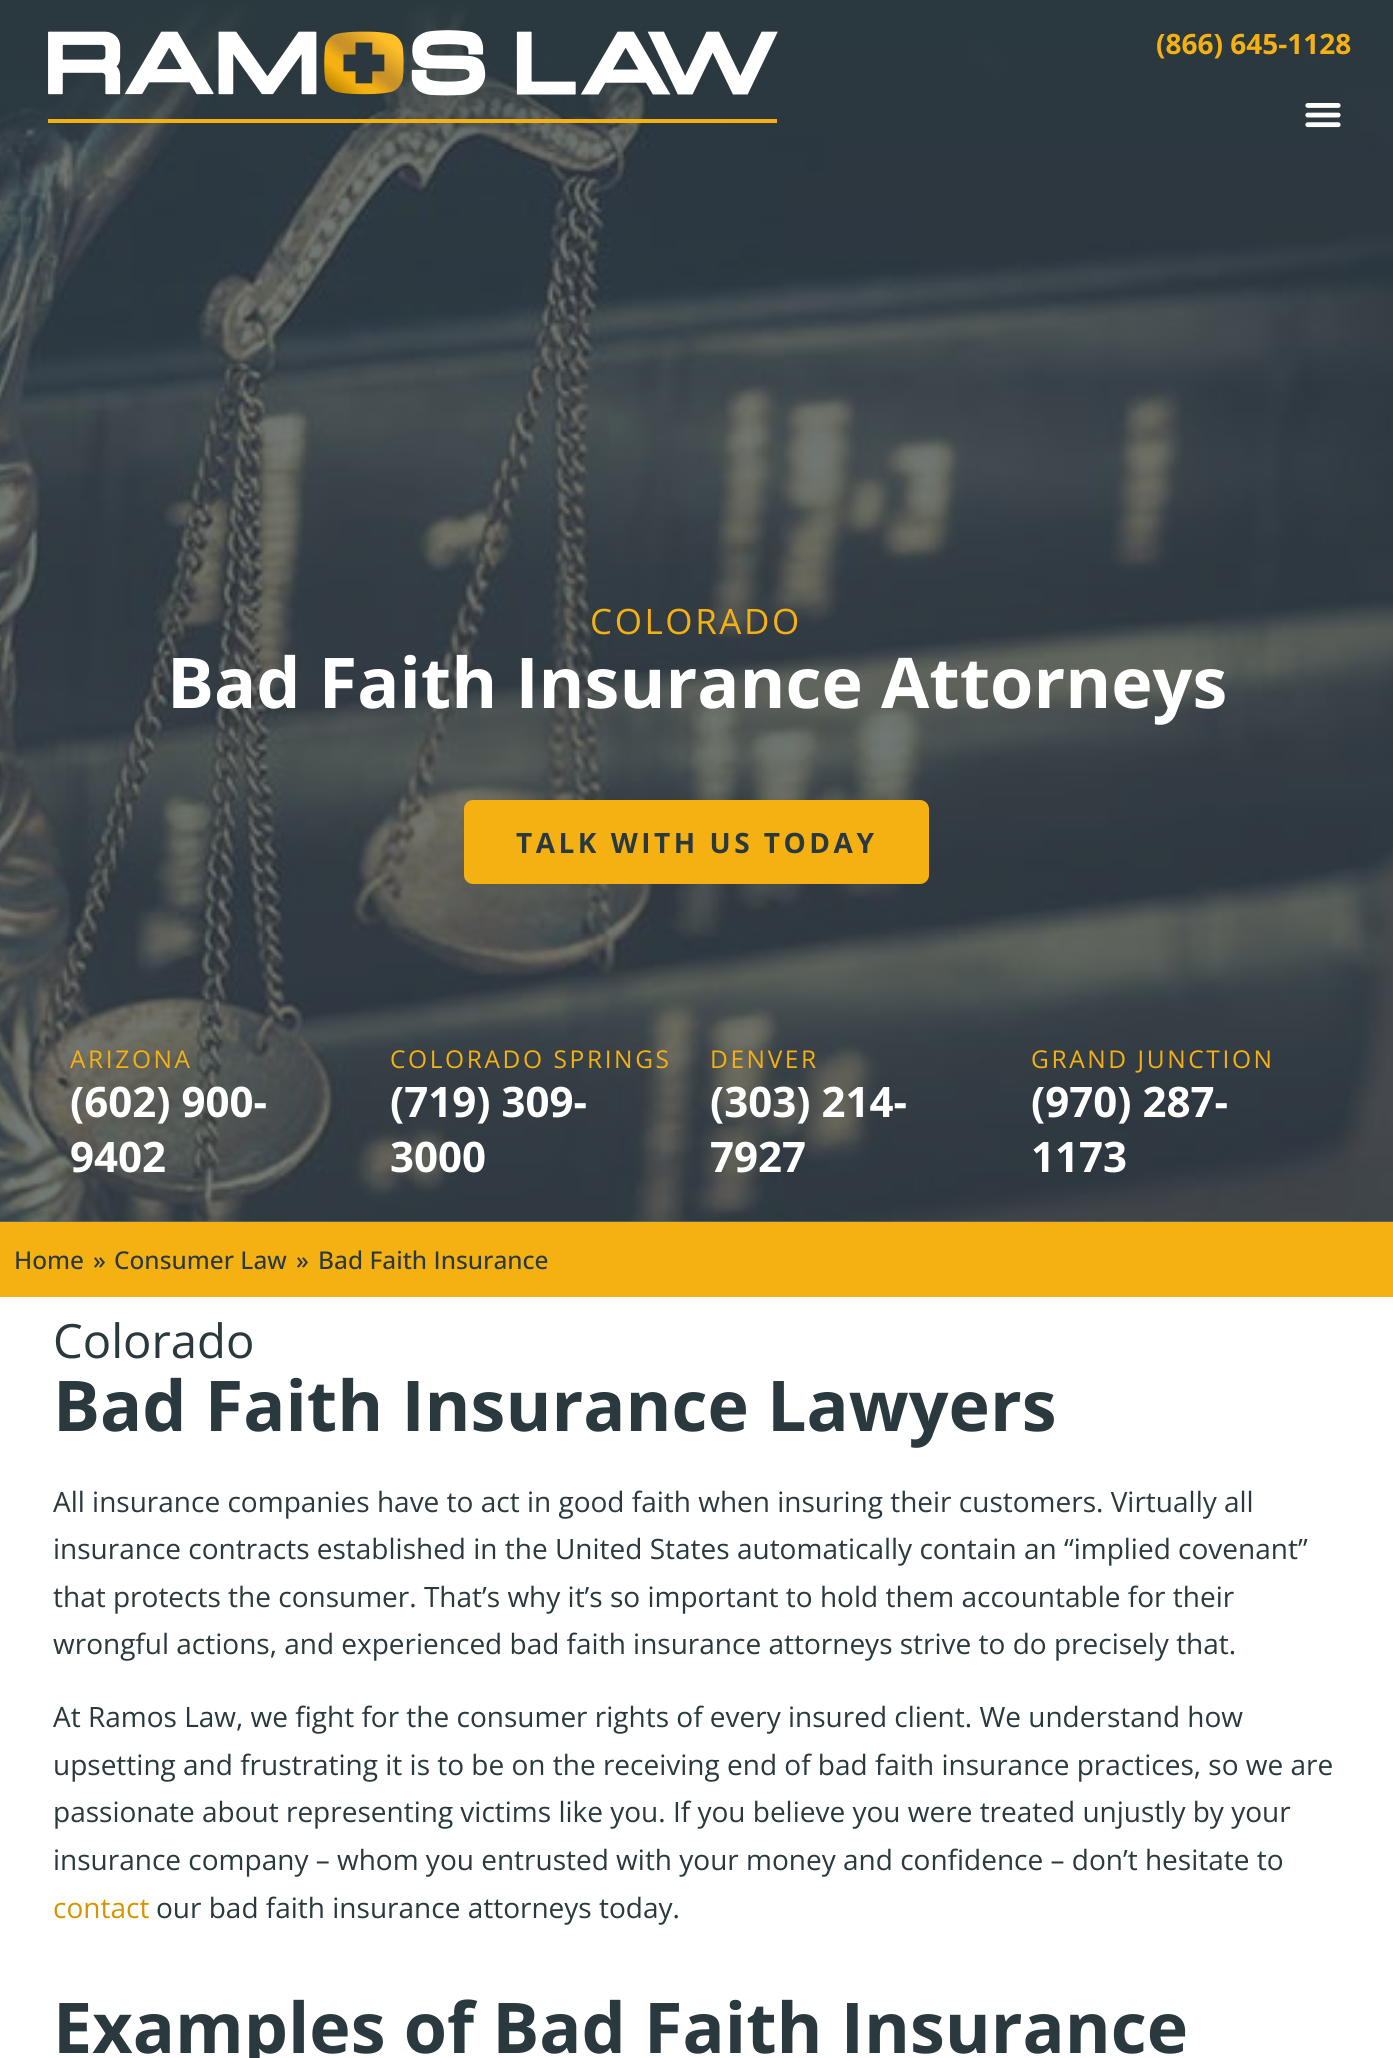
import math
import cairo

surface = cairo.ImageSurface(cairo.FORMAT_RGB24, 1393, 2058)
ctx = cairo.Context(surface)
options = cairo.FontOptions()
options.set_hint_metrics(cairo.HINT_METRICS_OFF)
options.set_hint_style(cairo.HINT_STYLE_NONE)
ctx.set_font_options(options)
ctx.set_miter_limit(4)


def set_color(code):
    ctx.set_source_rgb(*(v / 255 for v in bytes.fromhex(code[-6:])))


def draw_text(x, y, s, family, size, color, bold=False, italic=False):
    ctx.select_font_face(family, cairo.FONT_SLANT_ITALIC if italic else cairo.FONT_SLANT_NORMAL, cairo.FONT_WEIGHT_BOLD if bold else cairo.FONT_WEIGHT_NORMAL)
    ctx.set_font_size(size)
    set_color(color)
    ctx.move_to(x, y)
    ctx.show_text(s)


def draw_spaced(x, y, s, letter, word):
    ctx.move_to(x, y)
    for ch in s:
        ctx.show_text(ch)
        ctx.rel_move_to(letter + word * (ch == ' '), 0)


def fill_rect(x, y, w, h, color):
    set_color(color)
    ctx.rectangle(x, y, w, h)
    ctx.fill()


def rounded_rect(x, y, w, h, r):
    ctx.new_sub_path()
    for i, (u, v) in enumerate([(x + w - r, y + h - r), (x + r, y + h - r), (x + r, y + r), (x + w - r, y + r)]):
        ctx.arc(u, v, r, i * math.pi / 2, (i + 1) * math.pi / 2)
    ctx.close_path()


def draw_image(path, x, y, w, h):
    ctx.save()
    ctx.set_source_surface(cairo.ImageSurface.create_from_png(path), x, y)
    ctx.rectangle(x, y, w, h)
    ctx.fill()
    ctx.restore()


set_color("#ffffff")
ctx.paint()
fill_rect(0, 1221, 1393, 1, "#707a7e")
draw_image("assets/img3.png", 0, 0, 1393, 1222)
draw_image("assets/img1.png", 48, 30, 730, 93)
draw_text(1156, 54, "(866) 645-1128", "Open Sans", 28, "#f5b111", bold=True)
draw_image("assets/img2.png", 1305, 103, 36, 25)
ctx.select_font_face("Open Sans")
ctx.set_font_size(35)
draw_spaced(590, 634, "COLORADO", 2.6, 0)
draw_text(167, 708, "Bad Faith Insurance Attorneys", "Open Sans", 70, "#ffffff", bold=True)
set_color("#f5b111")
rounded_rect(464, 800, 465, 84, 9)
ctx.fill()
ctx.set_font_size(28)
set_color("#2a393e")
draw_spaced(516, 853, "TALK WITH US TODAY", 3.5, 0)
ctx.select_font_face("Open Sans")
ctx.set_font_size(24.5)
set_color("#f5b111")
draw_spaced(70, 1068, "ARIZONA", 2.6, 0)
draw_text(70, 1117, "(602) 900-", "Open Sans", 42, "#ffffff", bold=True)
draw_text(70, 1172, "9402", "Open Sans", 42, "#ffffff", bold=True)
ctx.select_font_face("Open Sans")
ctx.set_font_size(24.5)
set_color("#f5b111")
draw_spaced(390, 1068, "COLORADO SPRINGS", 2.6, 0)
draw_text(390, 1117, "(719) 309-", "Open Sans", 42, "#ffffff", bold=True)
draw_text(390, 1172, "3000", "Open Sans", 42, "#ffffff", bold=True)
ctx.select_font_face("Open Sans")
ctx.set_font_size(24.5)
set_color("#f5b111")
draw_spaced(710, 1068, "DENVER", 2.6, 0)
draw_text(710, 1117, "(303) 214-", "Open Sans", 42, "#ffffff", bold=True)
draw_text(710, 1172, "7927", "Open Sans", 42, "#ffffff", bold=True)
ctx.select_font_face("Open Sans")
ctx.set_font_size(24.5)
set_color("#f5b111")
draw_spaced(1031, 1068, "GRAND JUNCTION", 2.6, 0)
draw_text(1031, 1117, "(970) 287-", "Open Sans", 42, "#ffffff", bold=True)
draw_text(1031, 1172, "1173", "Open Sans", 42, "#ffffff", bold=True)
fill_rect(0, 1222, 1393, 75, "#f5b111")
draw_text(14, 1269, "Home", "Open Sans Medium", 24.5, "#2a393e")
draw_text(93, 1269, "»", "Open Sans Medium", 24.5, "#2a393e")
draw_text(114, 1269, "Consumer Law", "Open Sans Medium", 24.5, "#2a393e")
draw_text(296, 1269, "»", "Open Sans Medium", 24.5, "#2a393e")
draw_text(318, 1269, "Bad Faith Insurance", "Open Sans Medium", 24.5, "#2a393e")
draw_text(53, 1358, "Colorado", "Open Sans", 47.25, "#2a393e")
draw_text(53, 1431, "Bad Faith Insurance Lawyers", "Open Sans", 70, "#2a393e", bold=True)
draw_text(53, 1512, "All insurance companies have to act in good faith when insuring their customers. Virtually all", "Open Sans", 28, "#2a393e")
draw_text(53, 1559, "insurance contracts established in the United States automatically contain an “implied covenant”", "Open Sans", 28, "#2a393e")
draw_text(53, 1607, "that protects the consumer. That’s why it’s so important to hold them accountable for their", "Open Sans", 28, "#2a393e")
draw_text(53, 1654, "wrongful actions, and experienced bad faith insurance attorneys strive to do precisely that.", "Open Sans", 28, "#2a393e")
draw_text(53, 1727, "At Ramos Law, we fight for the consumer rights of every insured client. We understand how", "Open Sans", 28, "#2a393e")
draw_text(53, 1775, "upsetting and frustrating it is to be on the receiving end of bad faith insurance practices, so we are", "Open Sans", 28, "#2a393e")
draw_text(53, 1822, "passionate about representing victims like you. If you believe you were treated unjustly by your", "Open Sans", 28, "#2a393e")
draw_text(53, 1870, "insurance company – whom you entrusted with your money and confidence – don’t hesitate to", "Open Sans", 28, "#2a393e")
draw_text(53, 1918, "contact", "Open Sans", 28, "#d59500")
draw_text(156, 1918, "our bad faith insurance attorneys today.", "Open Sans", 28, "#2a393e")
draw_text(53, 2053, "Examples of Bad Faith Insurance", "Open Sans", 70, "#2a393e", bold=True)
surface.write_to_png("output.png")
